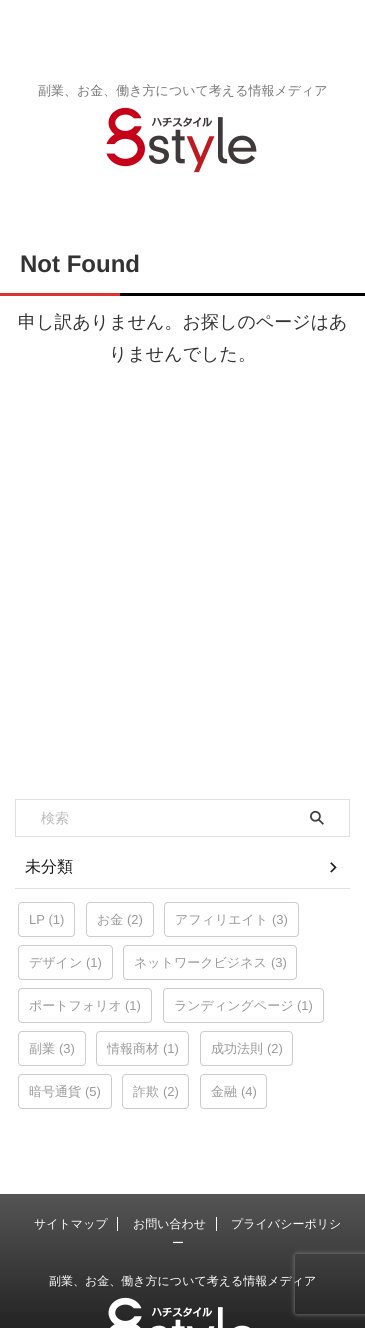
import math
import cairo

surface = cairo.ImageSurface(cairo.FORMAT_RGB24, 365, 1328)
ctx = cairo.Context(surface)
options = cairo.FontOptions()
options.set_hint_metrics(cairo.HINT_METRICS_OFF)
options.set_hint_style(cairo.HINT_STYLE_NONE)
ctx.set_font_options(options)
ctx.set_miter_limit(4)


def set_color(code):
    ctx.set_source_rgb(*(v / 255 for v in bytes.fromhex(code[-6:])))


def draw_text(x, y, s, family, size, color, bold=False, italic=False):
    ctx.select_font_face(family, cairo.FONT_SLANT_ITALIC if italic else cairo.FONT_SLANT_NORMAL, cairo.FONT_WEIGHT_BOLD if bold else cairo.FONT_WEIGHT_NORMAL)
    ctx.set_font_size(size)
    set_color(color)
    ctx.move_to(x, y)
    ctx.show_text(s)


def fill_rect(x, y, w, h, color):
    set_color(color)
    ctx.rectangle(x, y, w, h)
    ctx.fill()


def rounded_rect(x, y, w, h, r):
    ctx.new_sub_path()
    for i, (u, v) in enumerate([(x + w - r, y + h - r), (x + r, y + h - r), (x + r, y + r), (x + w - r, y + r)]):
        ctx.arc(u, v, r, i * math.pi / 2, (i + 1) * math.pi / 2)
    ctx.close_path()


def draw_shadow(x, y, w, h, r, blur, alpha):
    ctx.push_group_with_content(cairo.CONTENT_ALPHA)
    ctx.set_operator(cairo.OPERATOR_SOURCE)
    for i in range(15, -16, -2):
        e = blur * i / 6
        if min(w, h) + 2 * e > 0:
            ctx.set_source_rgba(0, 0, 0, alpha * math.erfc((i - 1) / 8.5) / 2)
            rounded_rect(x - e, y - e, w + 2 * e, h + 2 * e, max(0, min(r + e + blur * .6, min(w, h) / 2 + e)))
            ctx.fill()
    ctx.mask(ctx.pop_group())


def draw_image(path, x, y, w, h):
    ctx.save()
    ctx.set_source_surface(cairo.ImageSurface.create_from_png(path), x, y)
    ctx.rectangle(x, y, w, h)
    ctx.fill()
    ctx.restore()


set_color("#ffffff")
ctx.paint()
draw_text(38, 95, "副業、お金、働き方について考える情報メディア", "WenQuanYi Zen Hei Medium", 13, "#777777")
draw_image("assets/img1.png", 106, 107, 151, 66)
fill_rect(120, 293, 245, 3, "#000000")
draw_text(20, 272, "Not Found", "Liberation Sans", 24, "#333333", bold=True)
fill_rect(0, 293, 120, 3, "#dd3333")
draw_text(18, 328, "申し訳ありません。お探しのページはあ", "WenQuanYi Zen Hei Medium", 18, "#333333")
draw_text(109, 360, "りませんでした。", "WenQuanYi Zen Hei Medium", 18, "#333333")
ctx.rectangle(15.5, 799.5, 334, 37)
set_color("#e0e0e0")
ctx.set_line_width(1)
ctx.stroke()
draw_text(41, 823, "検索", "WenQuanYi Zen Hei Medium", 14, "#bababa")
draw_image("assets/img2.png", 310, 810, 14, 15)
fill_rect(15, 888, 335, 1, "#e1e1e1")
draw_text(25, 872, "未分類", "WenQuanYi Zen Hei Medium", 16, "#1a1a1a")
draw_image("assets/img3.png", 330, 862, 7, 11)
rounded_rect(18.5, 902.5, 56, 34, 3.5)
set_color("#cccccc")
ctx.stroke()
draw_text(29, 924, "LP (1)", "Liberation Sans", 13, "#999999")
rounded_rect(86.5, 902.5, 67, 34, 3.5)
set_color("#cccccc")
ctx.stroke()
draw_text(97, 924, "お金", "WenQuanYi Zen Hei Medium", 13, "#999999")
draw_text(127, 924, "(2)", "Liberation Sans", 13, "#999999")
rounded_rect(164.5, 902.5, 134, 34, 3.5)
set_color("#cccccc")
ctx.stroke()
draw_text(175, 924, "アフィリエイト", "WenQuanYi Zen Hei Medium", 13, "#999999")
draw_text(272, 924, "(3)", "Liberation Sans", 13, "#999999")
rounded_rect(18.5, 945.5, 94, 34, 3.5)
set_color("#cccccc")
ctx.stroke()
draw_text(29, 967, "デザイン", "WenQuanYi Zen Hei Medium", 13, "#999999")
draw_text(86, 967, "(1)", "Liberation Sans", 13, "#999999")
rounded_rect(123.5, 945.5, 173, 34, 3.5)
set_color("#cccccc")
ctx.stroke()
draw_text(134, 967, "ネットワークビジネス", "WenQuanYi Zen Hei Medium", 13, "#999999")
draw_text(271, 967, "(3)", "Liberation Sans", 13, "#999999")
rounded_rect(18.5, 988.5, 133, 34, 3.5)
set_color("#cccccc")
ctx.stroke()
draw_text(29, 1010, "ポートフォリオ", "WenQuanYi Zen Hei Medium", 13, "#999999")
draw_text(125, 1010, "(1)", "Liberation Sans", 13, "#999999")
rounded_rect(163.5, 988.5, 160, 34, 3.5)
set_color("#cccccc")
ctx.stroke()
draw_text(174, 1010, "ランディングページ", "WenQuanYi Zen Hei Medium", 13, "#999999")
draw_text(297, 1010, "(1)", "Liberation Sans", 13, "#999999")
rounded_rect(18.5, 1031.5, 67, 34, 3.5)
set_color("#cccccc")
ctx.stroke()
draw_text(29, 1053, "副業", "WenQuanYi Zen Hei Medium", 13, "#999999")
draw_text(59, 1053, "(3)", "Liberation Sans", 13, "#999999")
rounded_rect(96.5, 1031.5, 92, 34, 3.5)
set_color("#cccccc")
ctx.stroke()
draw_text(107, 1053, "情報商材", "WenQuanYi Zen Hei Medium", 13, "#999999")
draw_text(163, 1053, "(1)", "Liberation Sans", 13, "#999999")
rounded_rect(200.5, 1031.5, 92, 34, 3.5)
set_color("#cccccc")
ctx.stroke()
draw_text(211, 1053, "成功法則", "WenQuanYi Zen Hei Medium", 13, "#999999")
draw_text(267, 1053, "(2)", "Liberation Sans", 13, "#999999")
rounded_rect(18.5, 1074.5, 93, 34, 3.5)
set_color("#cccccc")
ctx.stroke()
draw_text(29, 1096, "暗号通貨", "WenQuanYi Zen Hei Medium", 13, "#999999")
draw_text(85, 1096, "(5)", "Liberation Sans", 13, "#999999")
rounded_rect(122.5, 1074.5, 66, 34, 3.5)
set_color("#cccccc")
ctx.stroke()
draw_text(133, 1096, "詐欺", "WenQuanYi Zen Hei Medium", 13, "#999999")
draw_text(163, 1096, "(2)", "Liberation Sans", 13, "#999999")
rounded_rect(200.5, 1074.5, 66, 34, 3.5)
set_color("#cccccc")
ctx.stroke()
draw_text(211, 1096, "金融", "WenQuanYi Zen Hei Medium", 13, "#999999")
draw_text(241, 1096, "(4)", "Liberation Sans", 13, "#999999")
gradient = cairo.LinearGradient(183, 1194, 183, 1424)
gradient.add_color_stop_rgba(0, 0.333, 0.333, 0.333, 1)
gradient.add_color_stop_rgba(1, 0, 0, 0, 1)
ctx.set_source(gradient)
ctx.rectangle(0, 1194, 365, 134)
ctx.fill()
draw_text(34, 1228, "サイトマップ", "WenQuanYi Zen Hei Medium", 12, "#ffffff")
fill_rect(117, 1217, 1, 14, "#ffffff")
draw_text(133, 1228, "お問い合わせ", "WenQuanYi Zen Hei Medium", 12, "#ffffff")
fill_rect(216, 1217, 1, 14, "#ffffff")
draw_text(231, 1228, "プライバシーポリシ", "WenQuanYi Zen Hei Medium", 12, "#ffffff")
draw_text(172, 1247, "ー", "WenQuanYi Zen Hei Medium", 12, "#ffffff")
draw_text(49, 1285, "副業、お金、働き方について考える情報メディア", "WenQuanYi Zen Hei Medium", 12, "#ffffff")
draw_image("assets/img4.png", 108, 1297, 142, 31)
ctx.save()
ctx.set_fill_rule(cairo.FILL_RULE_EVEN_ODD)
ctx.new_path()
ctx.move_to(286, 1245)
ctx.line_to(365, 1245)
ctx.line_to(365, 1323)
ctx.line_to(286, 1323)
ctx.close_path()
ctx.move_to(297, 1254)
ctx.line_to(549, 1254)
ctx.curve_to(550, 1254, 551, 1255, 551, 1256)
ctx.line_to(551, 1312)
ctx.curve_to(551, 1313, 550, 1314, 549, 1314)
ctx.line_to(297, 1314)
ctx.curve_to(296, 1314, 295, 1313, 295, 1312)
ctx.line_to(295, 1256)
ctx.curve_to(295, 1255, 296, 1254, 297, 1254)
ctx.close_path()
ctx.clip()
set_color("#808080")
draw_shadow(295, 1254, 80, 60, 2, 2.5, 1)
ctx.restore()
surface.write_to_png("output.png")
